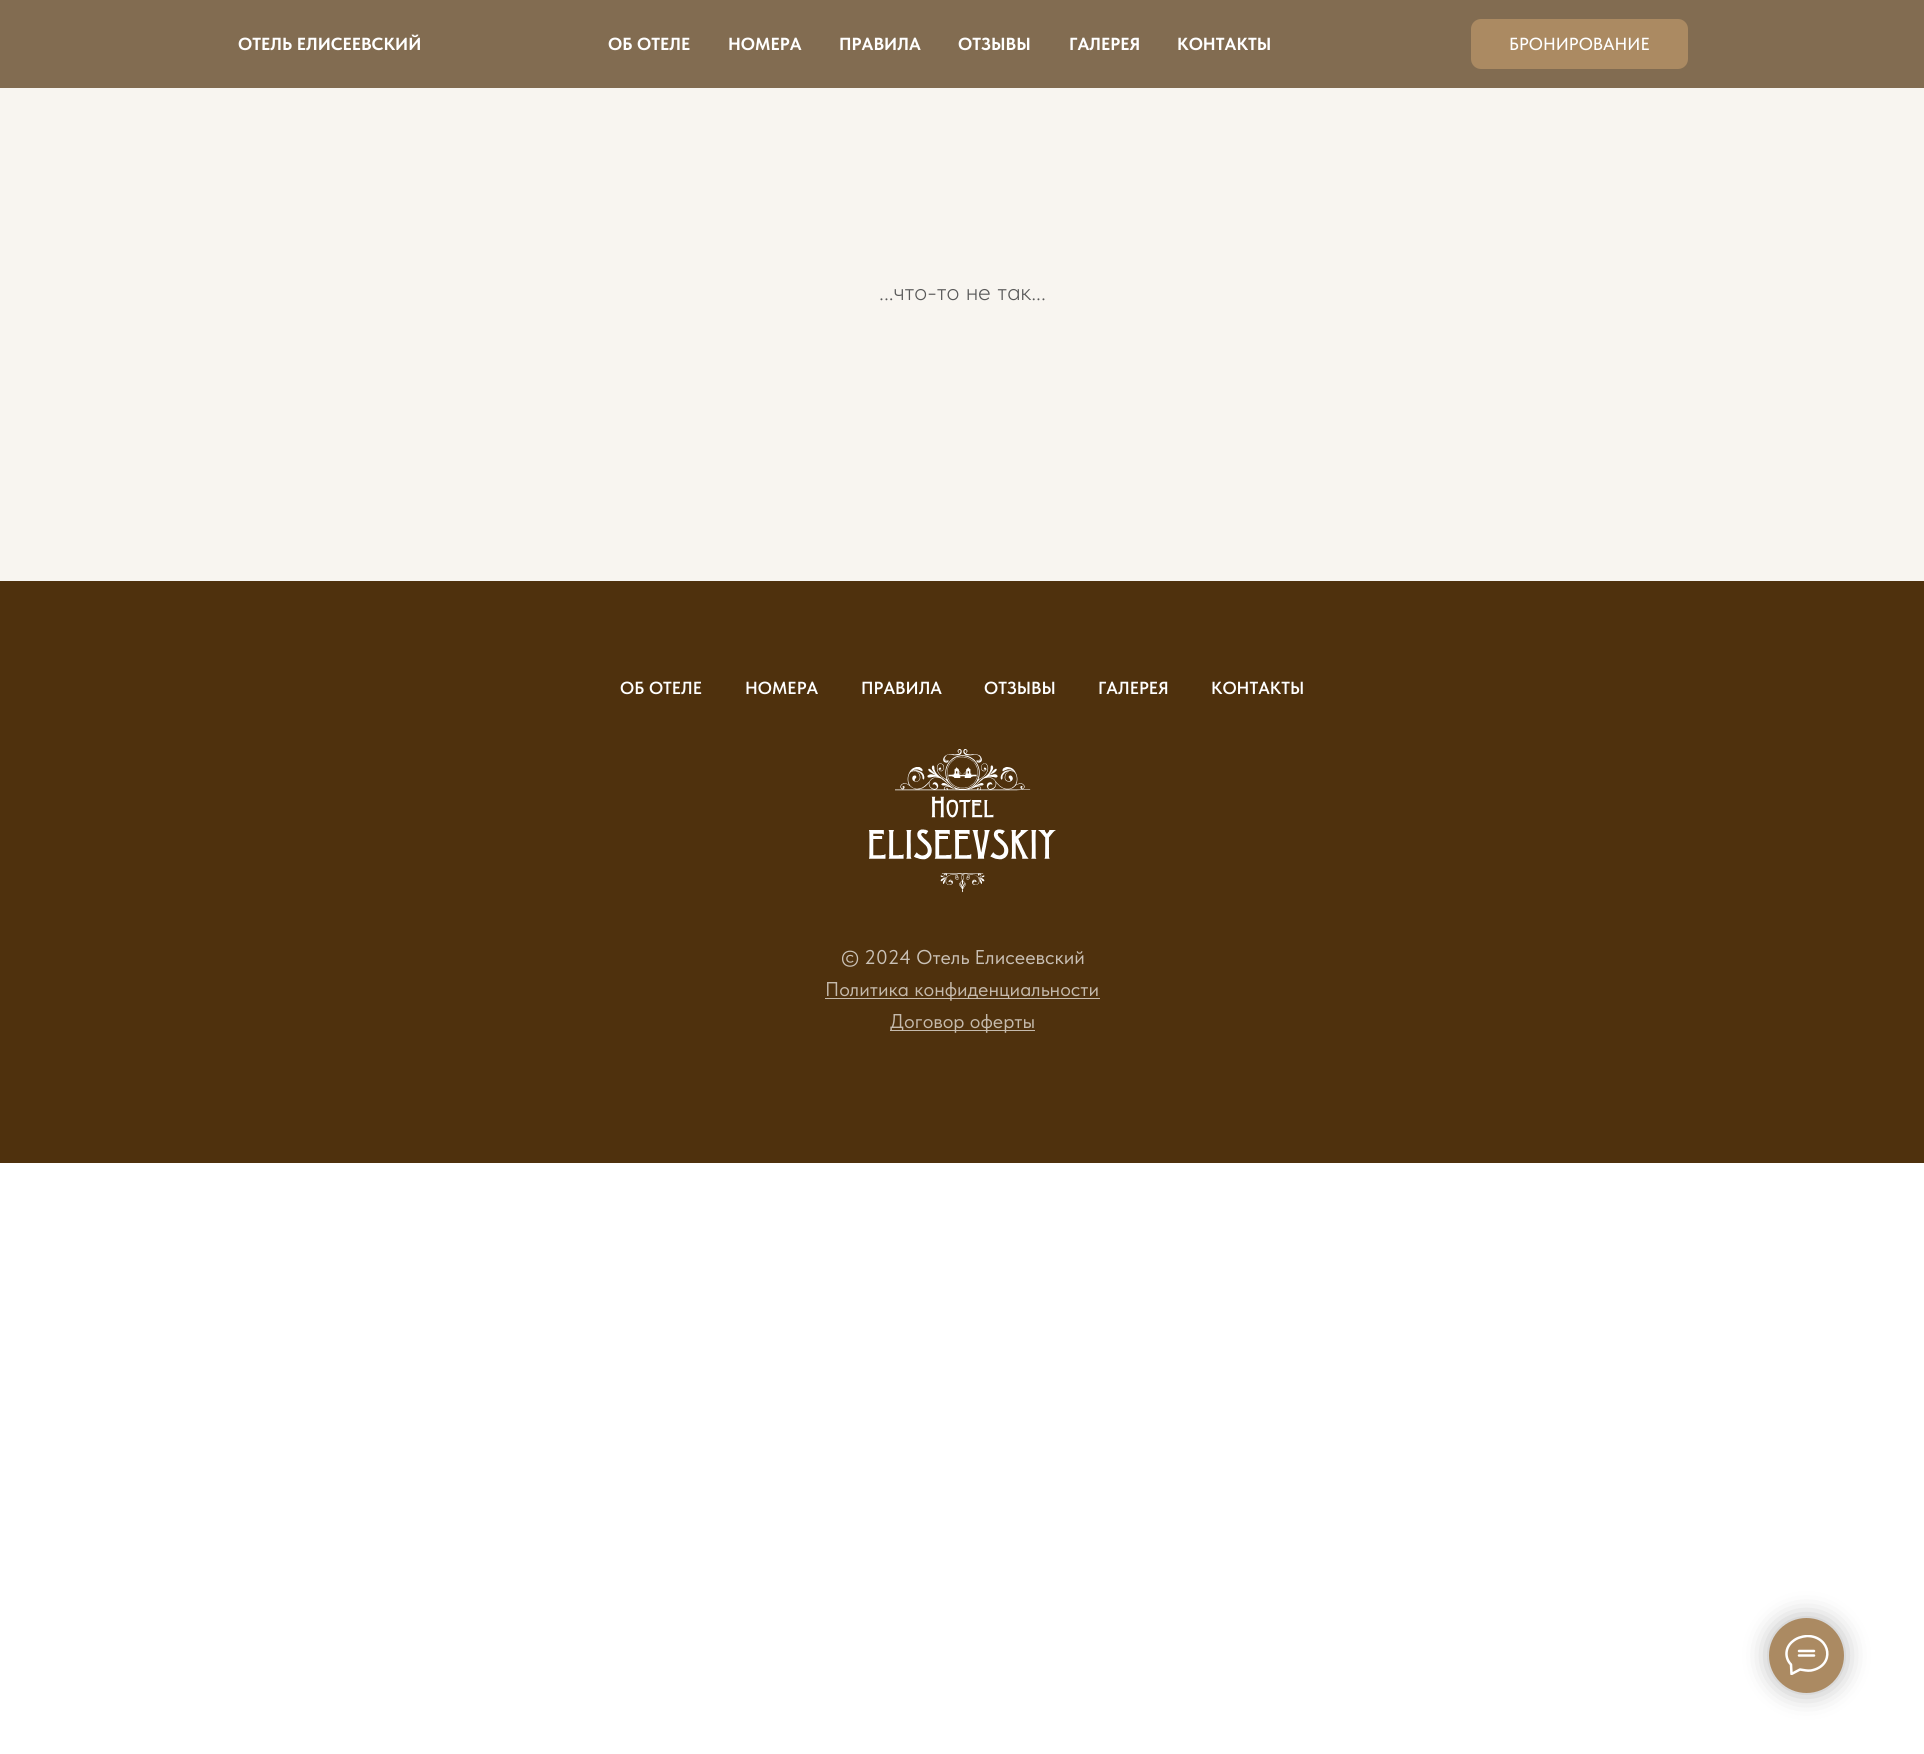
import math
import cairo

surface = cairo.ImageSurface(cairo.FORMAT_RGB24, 1924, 1754)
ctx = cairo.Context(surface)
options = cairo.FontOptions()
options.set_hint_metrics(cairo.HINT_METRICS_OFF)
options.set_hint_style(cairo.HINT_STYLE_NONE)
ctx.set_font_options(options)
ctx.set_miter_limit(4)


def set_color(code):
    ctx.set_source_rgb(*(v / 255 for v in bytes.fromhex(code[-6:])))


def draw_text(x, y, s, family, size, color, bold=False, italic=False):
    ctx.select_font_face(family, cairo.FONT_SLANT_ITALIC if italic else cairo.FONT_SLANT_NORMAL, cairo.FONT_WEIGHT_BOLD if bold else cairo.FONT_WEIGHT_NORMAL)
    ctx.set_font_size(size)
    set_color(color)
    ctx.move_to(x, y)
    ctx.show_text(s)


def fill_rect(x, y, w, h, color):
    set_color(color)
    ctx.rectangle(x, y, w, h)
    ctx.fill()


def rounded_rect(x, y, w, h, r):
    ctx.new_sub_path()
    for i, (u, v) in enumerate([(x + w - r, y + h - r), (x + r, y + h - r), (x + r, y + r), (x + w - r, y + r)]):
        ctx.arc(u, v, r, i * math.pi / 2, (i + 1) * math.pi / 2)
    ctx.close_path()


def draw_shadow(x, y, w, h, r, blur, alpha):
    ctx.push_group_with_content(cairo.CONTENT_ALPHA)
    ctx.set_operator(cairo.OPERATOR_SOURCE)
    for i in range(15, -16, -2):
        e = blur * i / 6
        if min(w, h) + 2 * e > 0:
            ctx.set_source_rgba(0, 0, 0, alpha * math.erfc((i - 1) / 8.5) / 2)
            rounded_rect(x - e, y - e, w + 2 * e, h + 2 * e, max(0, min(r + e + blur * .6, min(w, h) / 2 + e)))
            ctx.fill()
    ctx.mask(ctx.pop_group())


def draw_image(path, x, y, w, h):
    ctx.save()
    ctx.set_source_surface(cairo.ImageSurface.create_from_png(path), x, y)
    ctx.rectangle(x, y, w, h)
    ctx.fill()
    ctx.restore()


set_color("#ffffff")
ctx.paint()
fill_rect(0, 0, 1924, 88, "#826c51")
draw_text(238, 50, "ОТЕЛЬ ЕЛИСЕЕВСКИЙ", "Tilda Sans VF", 17.5, "#ffffff", bold=True)
draw_text(608, 50, "ОБ ОТЕЛЕ", "Tilda Sans VF", 17.5, "#ffffff", bold=True)
draw_text(728, 50, "НОМЕРА", "Tilda Sans VF", 17.5, "#ffffff", bold=True)
draw_text(839, 50, "ПРАВИЛА", "Tilda Sans VF", 17.5, "#ffffff", bold=True)
draw_text(958, 50, "ОТЗЫВЫ", "Tilda Sans VF", 17.5, "#ffffff", bold=True)
draw_text(1069, 50, "ГАЛЕРЕЯ", "Tilda Sans VF", 17.5, "#ffffff", bold=True)
draw_text(1177, 50, "КОНТАКТЫ", "Tilda Sans VF", 17.5, "#ffffff", bold=True)
set_color("#ab8a62")
rounded_rect(1471, 19, 217, 50, 10)
ctx.fill()
draw_text(1509, 50, "БРОНИРОВАНИЕ", "Tilda Sans VF Medium", 17.5, "#ffffff")
fill_rect(0, 88, 1924, 493, "#f8f5f0")
draw_text(879, 300, "...что-то не так...", "Tilda Sans VF Light", 25, "#595959")
fill_rect(0, 581, 1924, 582, "#4f310d")
draw_text(620, 694, "ОБ ОТЕЛЕ", "Tilda Sans VF SemiBold", 17.5, "#ffffff")
draw_text(745, 694, "НОМЕРА", "Tilda Sans VF SemiBold", 17.5, "#ffffff")
draw_text(861, 694, "ПРАВИЛА", "Tilda Sans VF SemiBold", 17.5, "#ffffff")
draw_text(984, 694, "ОТЗЫВЫ", "Tilda Sans VF SemiBold", 17.5, "#ffffff")
draw_text(1098, 694, "ГАЛЕРЕЯ", "Tilda Sans VF SemiBold", 17.5, "#ffffff")
draw_text(1211, 694, "КОНТАКТЫ", "Tilda Sans VF SemiBold", 17.5, "#ffffff")
draw_image("assets/img1.png", 869, 749, 187, 144)
draw_text(841, 964, "© 2024 Отель Елисеевский", "Tilda Sans VF", 20, "#cac1b6")
fill_rect(825, 998, 275, 1, "#c5baac")
draw_text(825, 996, "Политика конфиденциальности", "Tilda Sans VF", 20, "#c5baac")
fill_rect(890, 1030, 145, 1, "#c5baac")
draw_text(890, 1028, "Договор оферты", "Tilda Sans VF", 20, "#c5baac")
set_color("#000000")
draw_shadow(1769, 1618, 75, 75, 37.5, 12.5, 0.3)
set_color("#ab8a62")
ctx.arc(1806.5, 1655.5, 37.5, 0, 2 * math.pi)
ctx.fill()
ctx.save()
ctx.rectangle(1785, 1635, 44, 40)
ctx.clip()
ctx.new_path()
ctx.move_to(1799, 1651)
ctx.line_to(1814, 1651)
ctx.move_to(1799, 1655.5)
ctx.line_to(1814, 1655.5)
ctx.move_to(1791, 1664.5)
ctx.curve_to(1784.5, 1658, 1785, 1647.5, 1792.5, 1641.5)
ctx.curve_to(1796.5, 1638, 1801.5, 1636.5, 1807, 1636)
ctx.curve_to(1831, 1636, 1835.5, 1666, 1811, 1670.5)
ctx.curve_to(1807, 1671, 1804, 1670, 1800, 1669.5)
ctx.line_to(1791.5, 1674)
ctx.close_path()
set_color("#ffffff")
ctx.set_line_width(2.5)
ctx.set_line_cap(cairo.LINE_CAP_ROUND)
ctx.set_line_join(cairo.LINE_JOIN_ROUND)
ctx.stroke()
ctx.restore()
surface.write_to_png("output.png")
